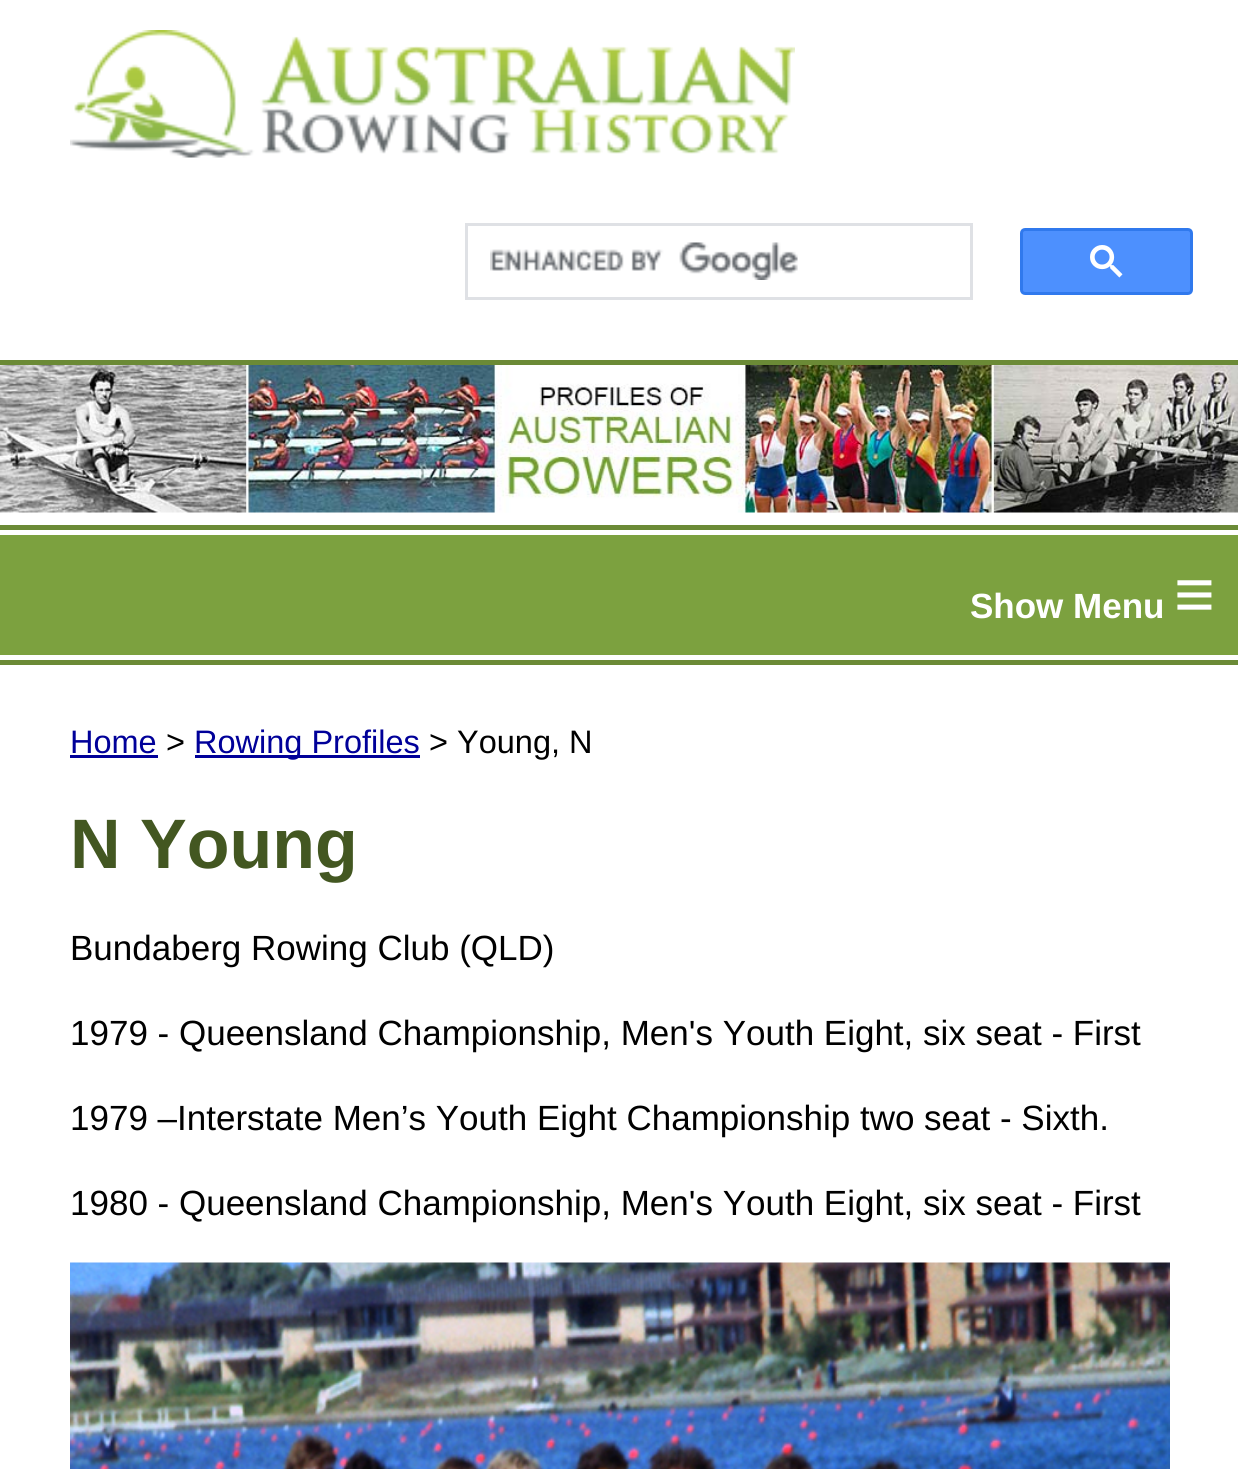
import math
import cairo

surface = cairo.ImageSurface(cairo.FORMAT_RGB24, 1238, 1469)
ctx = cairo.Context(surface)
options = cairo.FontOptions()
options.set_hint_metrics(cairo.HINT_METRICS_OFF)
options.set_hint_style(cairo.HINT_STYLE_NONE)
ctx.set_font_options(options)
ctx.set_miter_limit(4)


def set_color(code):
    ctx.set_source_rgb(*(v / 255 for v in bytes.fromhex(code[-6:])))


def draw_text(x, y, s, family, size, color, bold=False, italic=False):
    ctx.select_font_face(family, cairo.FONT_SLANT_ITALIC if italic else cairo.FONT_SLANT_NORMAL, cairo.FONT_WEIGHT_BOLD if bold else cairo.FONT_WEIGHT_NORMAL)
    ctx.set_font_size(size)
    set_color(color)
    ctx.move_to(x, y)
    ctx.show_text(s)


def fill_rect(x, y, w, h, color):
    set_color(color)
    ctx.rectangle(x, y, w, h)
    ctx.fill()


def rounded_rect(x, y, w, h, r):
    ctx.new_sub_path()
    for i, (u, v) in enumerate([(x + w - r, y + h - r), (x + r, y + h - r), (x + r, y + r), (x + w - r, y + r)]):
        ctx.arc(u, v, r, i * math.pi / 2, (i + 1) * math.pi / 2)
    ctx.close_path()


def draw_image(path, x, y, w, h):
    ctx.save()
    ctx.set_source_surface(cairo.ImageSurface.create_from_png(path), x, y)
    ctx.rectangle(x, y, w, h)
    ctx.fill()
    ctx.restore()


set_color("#ffffff")
ctx.paint()
draw_image("assets/img1.png", 70, 30, 725, 128)
ctx.rectangle(466.5, 224.5, 505, 74)
set_color("#dfe1e5")
ctx.set_line_width(3)
ctx.stroke()
draw_image("assets/img2.png", 490, 242, 308, 38)
set_color("#4d90fe")
rounded_rect(1021.5, 229.5, 170, 64, 3.5)
ctx.fill_preserve()
set_color("#3079ed")
ctx.stroke()
draw_image("assets/img3.png", 1090, 245, 33, 33)
fill_rect(0, 360, 1238, 5, "#6b8a36")
fill_rect(0, 525, 1238, 5, "#6b8a36")
draw_image("assets/img4.png", 0, 365, 1238, 148)
fill_rect(0, 535, 1238, 120, "#7ca13f")
draw_text(970, 618, "Show Menu", "Liberation Sans", 35, "#ffffff", bold=True)
draw_text(1174, 618, "≡", "Liberation Sans", 70, "#ffffff", bold=True)
fill_rect(0, 660, 1238, 5, "#6b8a36")
draw_text(70, 753, "Home", "Liberation Sans", 32.5, "#000099")
fill_rect(70, 755, 88, 3, "#000099")
draw_text(166, 753, ">", "Liberation Sans", 32.5, "#000000")
fill_rect(195, 755, 225, 3, "#000099")
draw_text(194, 753, "Rowing Profiles", "Liberation Sans", 32.5, "#000099")
draw_text(429, 753, "> Young, N", "Liberation Sans", 32.5, "#000000")
draw_text(70, 868, "N Young", "Liberation Sans", 70, "#435721", bold=True)
draw_text(70, 960, "Bundaberg Rowing Club (QLD)", "Liberation Sans", 35, "#000000")
draw_text(70, 1045, "1979 - Queensland Championship, Men's Youth Eight, six seat - First", "Liberation Sans", 35, "#000000")
draw_text(70, 1130, "1979 –Interstate Men’s Youth Eight Championship two seat - Sixth.", "Liberation Sans", 35, "#000000")
draw_text(70, 1215, "1980 - Queensland Championship, Men's Youth Eight, six seat - First", "Liberation Sans", 35, "#000000")
draw_image("assets/img5.png", 70, 1262, 1100, 207)
surface.write_to_png("output.png")
